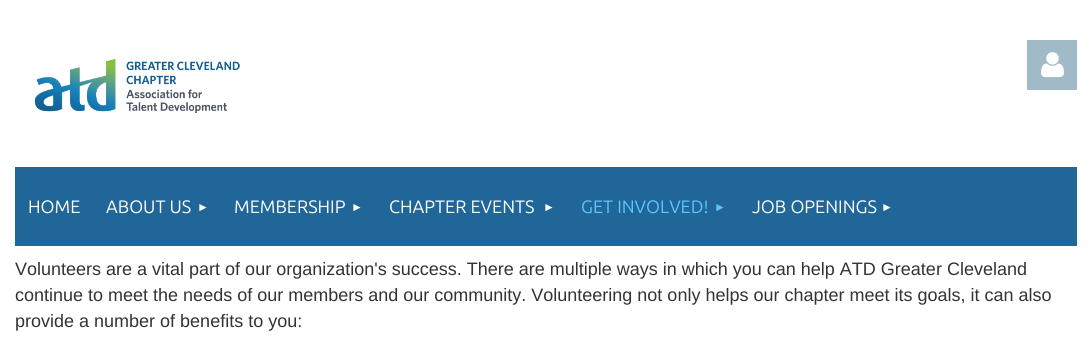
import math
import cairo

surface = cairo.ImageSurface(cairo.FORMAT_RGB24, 1092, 347)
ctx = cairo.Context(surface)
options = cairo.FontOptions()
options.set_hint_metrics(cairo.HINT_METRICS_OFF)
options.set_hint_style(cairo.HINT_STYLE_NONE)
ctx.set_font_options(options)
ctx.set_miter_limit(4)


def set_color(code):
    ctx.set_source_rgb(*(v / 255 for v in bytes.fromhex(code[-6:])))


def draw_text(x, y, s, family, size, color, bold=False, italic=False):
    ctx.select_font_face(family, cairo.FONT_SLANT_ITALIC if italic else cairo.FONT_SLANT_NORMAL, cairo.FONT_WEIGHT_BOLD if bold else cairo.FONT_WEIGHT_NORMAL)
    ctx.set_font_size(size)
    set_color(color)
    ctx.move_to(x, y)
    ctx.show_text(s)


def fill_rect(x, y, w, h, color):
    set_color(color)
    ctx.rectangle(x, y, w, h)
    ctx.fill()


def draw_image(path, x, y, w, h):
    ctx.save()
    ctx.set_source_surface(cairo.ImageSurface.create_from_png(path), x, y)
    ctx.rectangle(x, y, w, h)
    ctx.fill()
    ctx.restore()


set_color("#ffffff")
ctx.paint()
draw_image("assets/img1.png", 34, 58, 206, 55)
fill_rect(1027, 40, 50, 50, "#a0bac7")
draw_image("assets/img2.png", 1041, 52, 23, 26)
fill_rect(15, 167, 1062, 79, "#206699")
draw_text(28, 213, "HOME", "Ubuntu", 18, "#ffffff")
draw_text(106, 213, "ABOUT US", "Ubuntu", 18, "#ffffff")
draw_text(197, 211, "►", "Liberation Sans", 12, "#ffffff")
draw_text(234, 213, "MEMBERSHIP", "Ubuntu", 18, "#ffffff")
draw_text(351, 211, "►", "Liberation Sans", 12, "#ffffff")
draw_text(389, 213, "CHAPTER EVENTS", "Ubuntu", 18, "#ffffff")
draw_text(543, 211, "►", "Liberation Sans", 12, "#ffffff")
draw_text(581, 213, "GET INVOLVED!", "Ubuntu", 18, "#5bc7ff")
draw_text(714, 211, "►", "Liberation Sans", 12, "#5bc7ff")
draw_text(752, 213, "JOB OPENINGS", "Ubuntu", 18, "#ffffff")
draw_text(881, 211, "►", "Liberation Sans", 12, "#ffffff")
draw_text(15, 275, "Volunteers are a vital part of our organization's success. There are multiple ways in which you can help ATD Greater Cleveland", "Liberation Sans", 18, "#333333")
draw_text(15, 301, "continue to meet the needs of our members and our community. Volunteering not only helps our chapter meet its goals, it can also", "Liberation Sans", 18, "#333333")
draw_text(15, 327, "provide a number of benefits to you:", "Liberation Sans", 18, "#333333")
surface.write_to_png("output.png")
